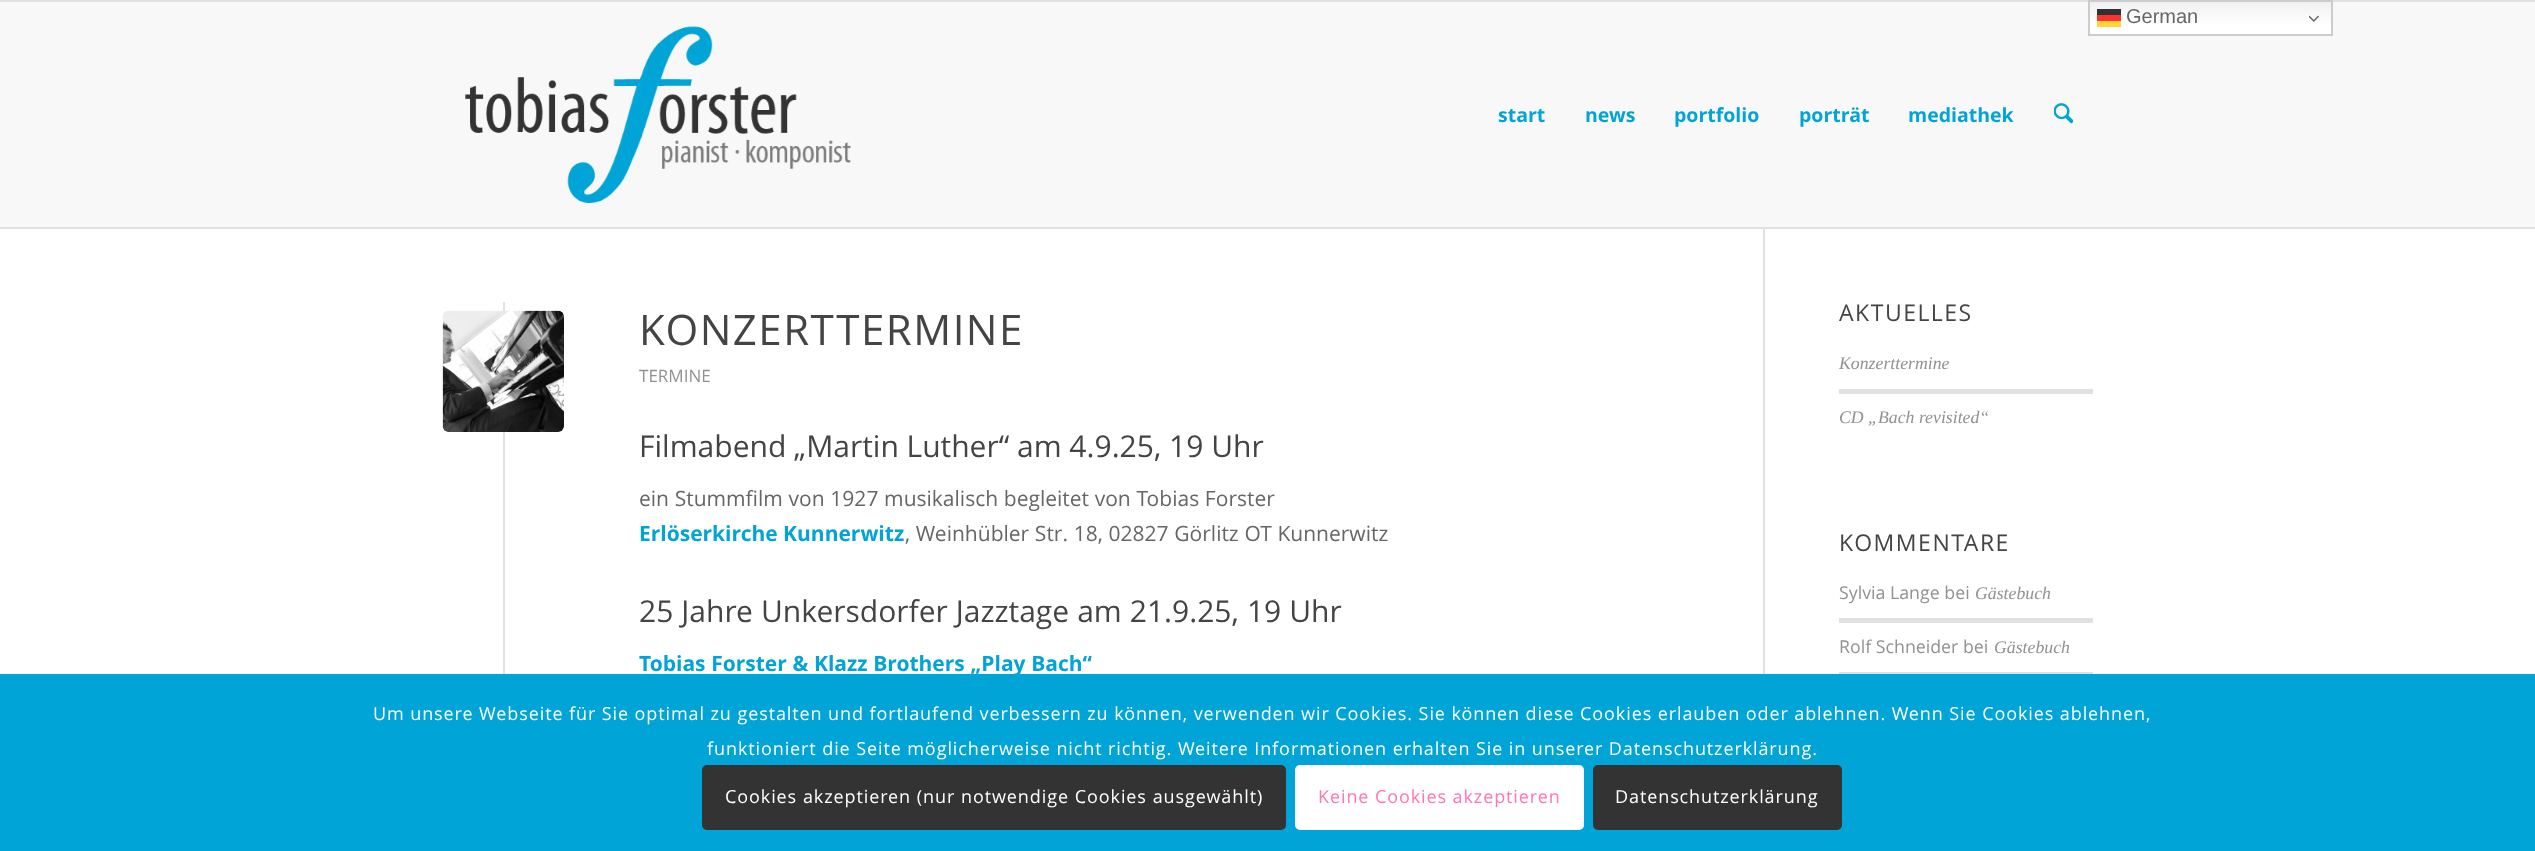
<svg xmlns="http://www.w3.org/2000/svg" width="2535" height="851">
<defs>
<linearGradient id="g1" gradientUnits="userSpaceOnUse" x1="2210" y1="0" x2="2210" y2="36"><stop offset="0" stop-color="#efefef"/><stop offset="0.7" stop-color="#fff"/></linearGradient>
<linearGradient id="g2" gradientUnits="userSpaceOnUse" x1="2210" y1="0" x2="2210" y2="36"><stop offset="0" stop-color="#fc3030"/><stop offset="0.7" stop-color="#f33"/></linearGradient>
<linearGradient id="g3" gradientUnits="userSpaceOnUse" x1="2210" y1="0" x2="2210" y2="36"><stop offset="0" stop-color="#303030"/><stop offset="0.7" stop-color="#333"/></linearGradient>
</defs>
<rect width="100%" height="100%" fill="#f8f8f8"/>
<rect x="2090" y="2" width="241" height="32" fill="url(#g1)"/>
<rect x="2097" y="15" width="24" height="6" fill="url(#g2)"/>
<rect x="2097" y="9" width="24" height="6" fill="url(#g3)"/>
<rect width="2535" height="2" fill="#e1e1e1"/>
<rect x="2089" y="1" width="243" height="34" fill="none" stroke="#ccc" stroke-width="2"/>
<text x="2126" y="23" style="font-family:Liberation Sans;font-size:20px;fill:#666">German</text>
<image x="2309" y="15" width="10" height="7" href="media/1.png"/>
<rect x="2097" y="21" width="24" height="6" fill="#ffd633"/>
<rect y="229" width="2535" height="445" fill="#fff"/>
<rect x="1763" y="227" width="2" height="447" fill="#e1e1e1"/>
<rect y="227" width="2535" height="2" fill="#e1e1e1"/>
<image x="465" y="26" width="386" height="177" href="media/2.png"/>
<text x="1498" y="122" style="font-family:Open Sans;font-size:19.5px;font-weight:bold;fill:#01a4d6">start</text>
<text x="1585" y="122" style="font-family:Open Sans;font-size:19.5px;font-weight:bold;fill:#01a4d6">news</text>
<text x="1674" y="122" style="font-family:Open Sans;font-size:19.5px;font-weight:bold;fill:#01a4d6">portfolio</text>
<text x="1799" y="122" style="font-family:Open Sans;font-size:19.5px;font-weight:bold;fill:#01a4d6">porträt</text>
<text x="1908" y="122" style="font-family:Open Sans;font-size:19.5px;font-weight:bold;fill:#01a4d6">mediathek</text>
<image x="2054" y="103" width="19" height="21" href="media/3.png"/>
<rect x="503" y="302" width="2" height="372" fill="#e1e1e1"/>
<rect x="443" y="311" width="121" height="121" rx="6" fill="#919191"/>
<image x="442" y="310" width="122" height="122" href="media/4.png"/>
<text x="639" y="345" style="font-family:Open Sans;font-size:42px;letter-spacing:1.5px;fill:#444">KONZERTTERMINE</text>
<text x="639" y="382" style="font-family:Open Sans;font-size:17px;fill:#919191">TERMINE</text>
<text x="639" y="457" style="font-family:Open Sans;font-size:30px;fill:#444">Filmabend „Martin Luther“ am 4.9.25, 19 Uhr</text>
<text x="639" y="506" word-spacing="0.25" style="font-family:Open Sans;font-size:21px;fill:#666">ein Stummfilm von 1927 musikalisch begleitet von Tobias Forster</text>
<text x="639" y="541" style="font-family:Open Sans;font-size:21px;font-weight:bold;fill:#01a4d6">Erlöserkirche Kunnerwitz</text>
<text x="905" y="541" word-spacing="0.25" style="font-family:Open Sans;font-size:21px;fill:#666">, Weinhübler Str. 18, 02827 Görlitz OT Kunnerwitz</text>
<text x="639" y="622" word-spacing="0.25" style="font-family:Open Sans;font-size:30px;fill:#444">25 Jahre Unkersdorfer Jazztage am 21.9.25, 19 Uhr</text>
<text x="639" y="671" word-spacing="0.25" style="font-family:Open Sans;font-size:21px;font-weight:bold;fill:#01a4d6">Tobias Forster &amp; Klazz Brothers „Play Bach“</text>
<text x="1839" y="321" style="font-family:Open Sans;font-size:23px;letter-spacing:1.5px;fill:#444">AKTUELLES</text>
<text x="1839" y="369" style="font-family:Liberation Serif;font-size:17.75px;font-style:italic;fill:#919191">Konzerttermine</text>
<rect x="1839" y="389" width="254" height="5" fill="#e1e1e1"/>
<text x="1839" y="423" style="font-family:Liberation Serif;font-size:17.75px;font-style:italic;fill:#919191">CD „Bach revisited“</text>
<text x="1839" y="551" style="font-family:Open Sans;font-size:23px;letter-spacing:1.5px;fill:#444">KOMMENTARE</text>
<text x="1839" y="599" style="font-family:Open Sans;font-size:17.75px;fill:#919191">Sylvia Lange bei</text>
<text x="1975" y="599" style="font-family:Liberation Serif;font-size:17.75px;font-style:italic;fill:#919191">Gästebuch</text>
<rect x="1839" y="618" width="254" height="5" fill="#e1e1e1"/>
<text x="1839" y="653" style="font-family:Open Sans;font-size:17.75px;fill:#919191">Rolf Schneider bei</text>
<text x="1994" y="653" style="font-family:Liberation Serif;font-size:17.75px;font-style:italic;fill:#919191">Gästebuch</text>
<rect x="1839" y="672" width="254" height="2" fill="#e1e1e1"/>
<rect y="674" width="2535" height="177" fill="#01a4d6"/>
<text x="373" y="720" style="font-family:Open Sans;font-size:18px;letter-spacing:0.9px;fill:#fff">Um unsere Webseite für Sie optimal zu gestalten und fortlaufend verbessern zu können, verwenden wir Cookies. Sie können diese Cookies erlauben oder ablehnen. Wenn Sie Cookies ablehnen,</text>
<text x="707" y="755" style="font-family:Open Sans;font-size:18px;letter-spacing:0.9px;fill:#fff">funktioniert die Seite möglicherweise nicht richtig. Weitere Informationen erhalten Sie in unserer Datenschutzerklärung.</text>
<rect x="702" y="765" width="584" height="65" rx="5" fill="#333"/>
<text x="725" y="803" word-spacing="0.25" style="font-family:Open Sans;font-size:18px;letter-spacing:0.9px;fill:#fff">Cookies akzeptieren (nur notwendige Cookies ausgewählt)</text>
<rect x="1296.5" y="766.5" width="286" height="62" rx="3.5" fill="#fff" stroke="#fff" stroke-width="3"/>
<text x="1318" y="803" style="font-family:Open Sans;font-size:18px;letter-spacing:0.9px;fill:#ff75b5">Keine Cookies akzeptieren</text>
<rect x="1593" y="765" width="249" height="65" rx="5" fill="#333"/>
<text x="1615" y="803" style="font-family:Open Sans;font-size:18px;letter-spacing:0.9px;fill:#fff">Datenschutzerklärung</text>
</svg>
